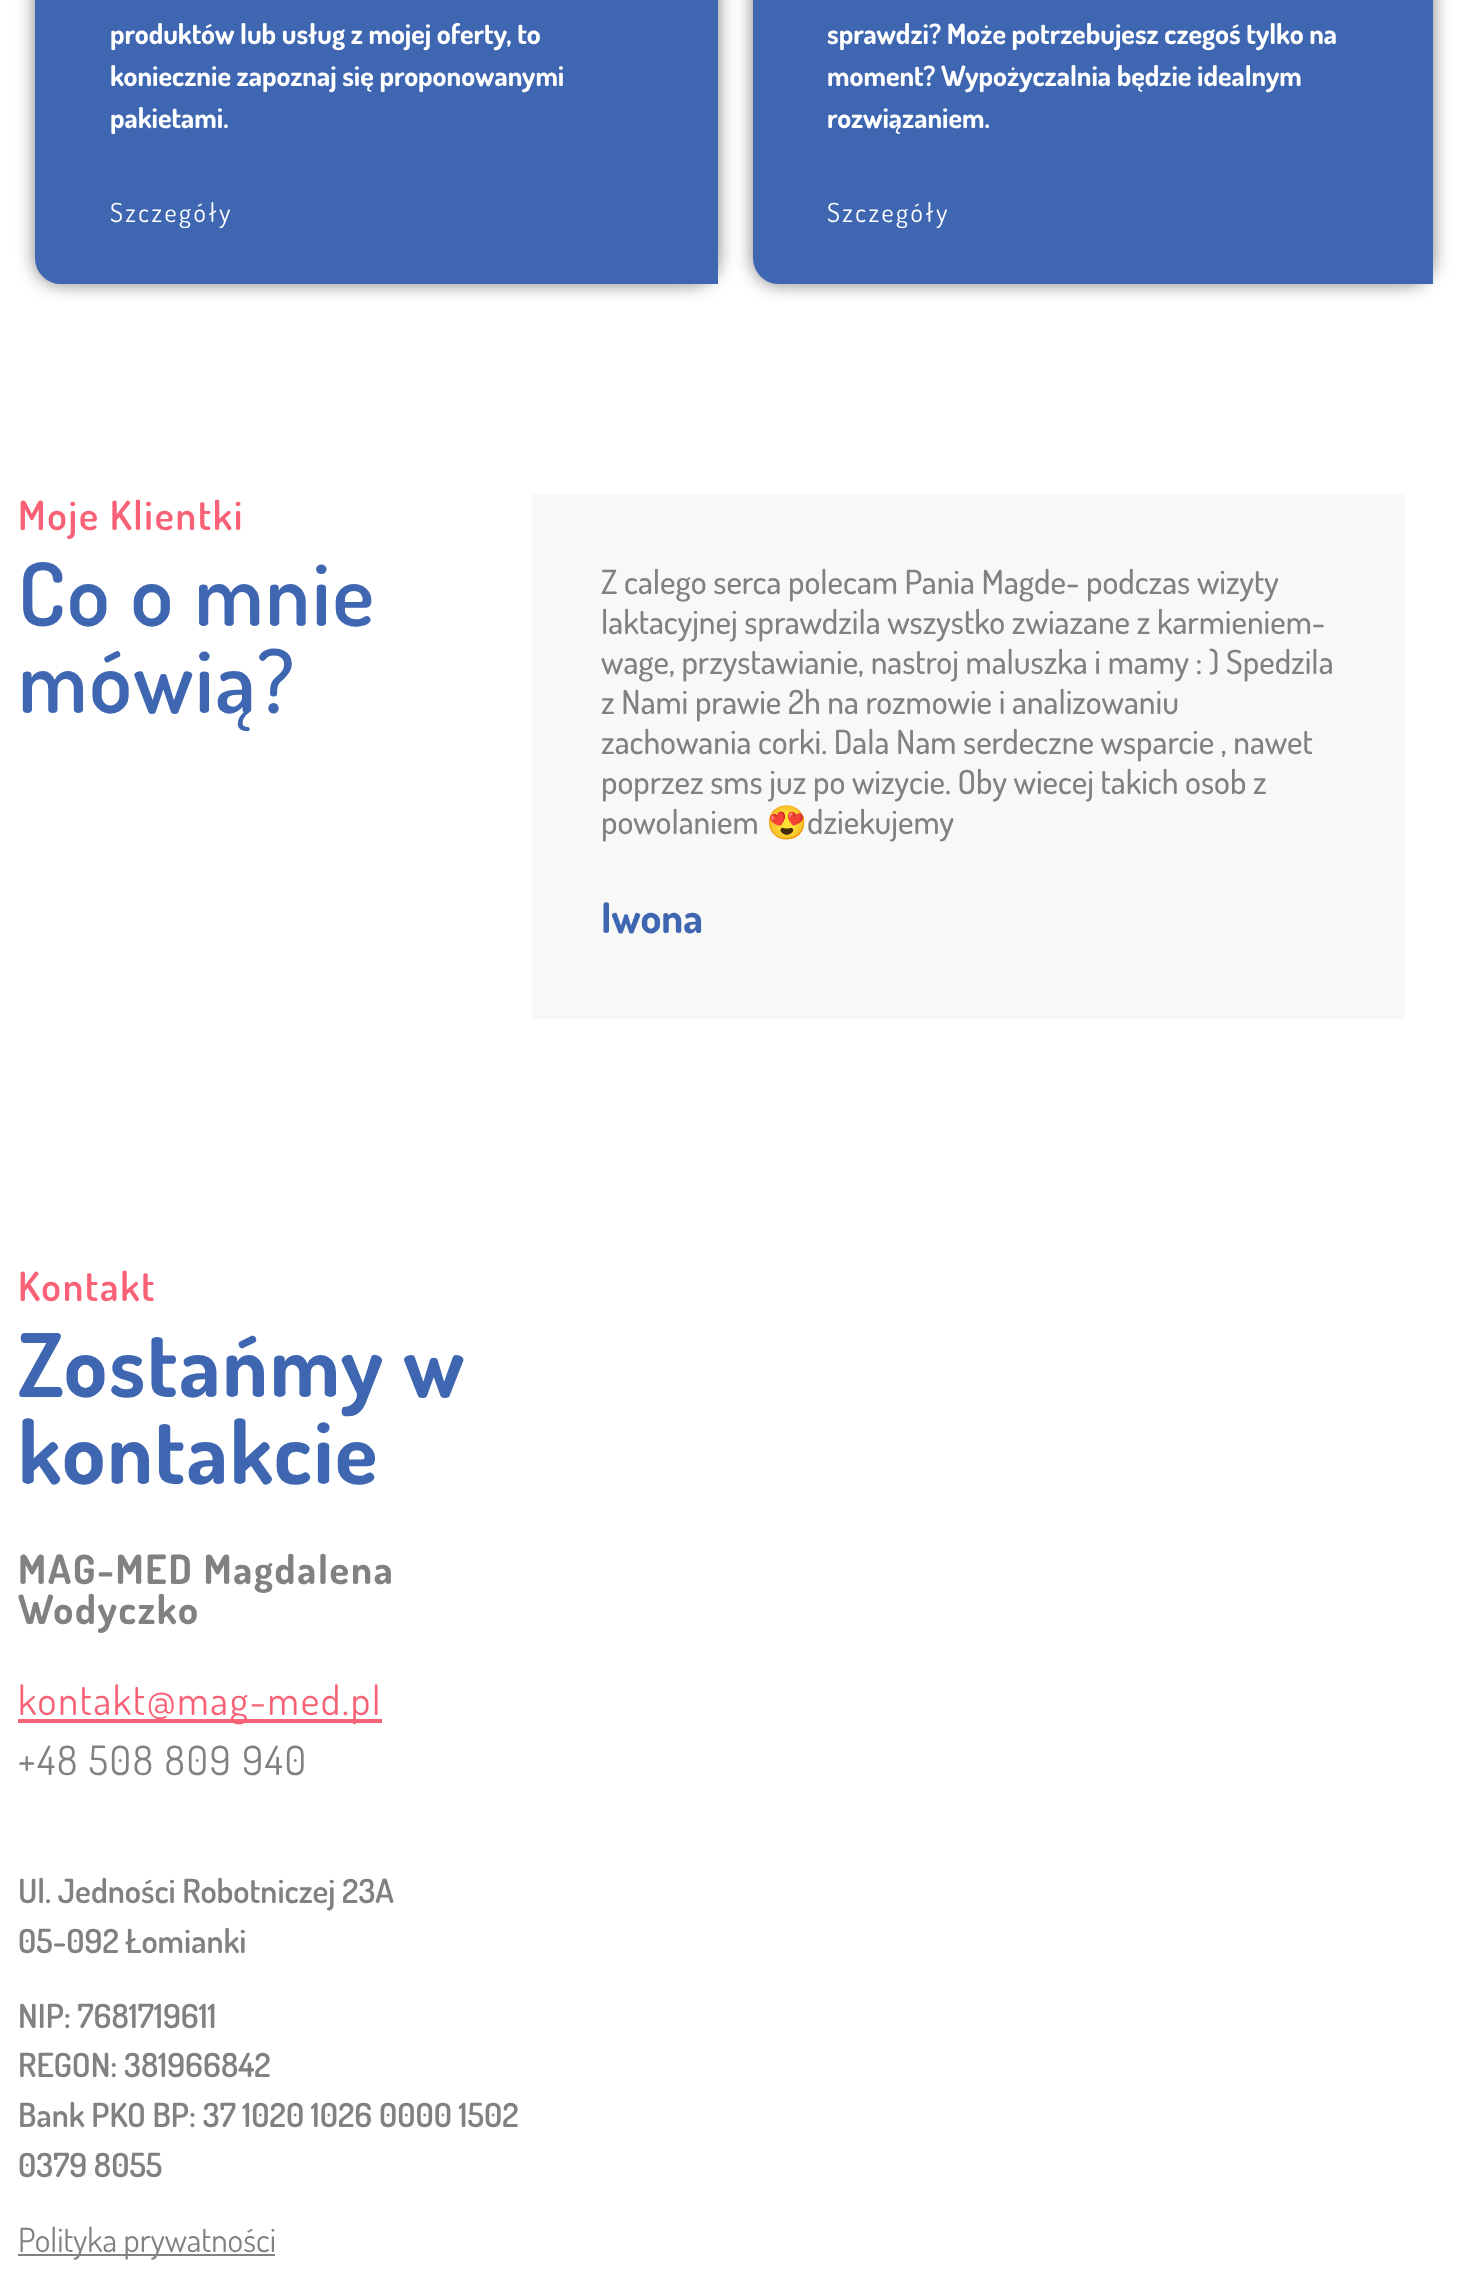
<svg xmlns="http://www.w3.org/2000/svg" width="1468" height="2270">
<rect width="100%" height="100%" fill="#fff"/>
<rect x="35" y="-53" width="683" height="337" rx="26" fill="#00000080" filter="blur(9px)"/>
<path d="M37.5-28.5h654.5c13 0 23.5 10.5 23.5 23.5v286.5h-654.5c-13 0-23.5-10.5-23.5-23.5z" fill="#3e66b1" stroke="#3e66b1" stroke-width="5"/>
<text x="110" y="44" style="font-family:Dosis;font-size:28px;font-weight:bold;fill:#fff">produktów lub usług z mojej oferty, to</text>
<text x="110" y="86" style="font-family:Dosis;font-size:28px;font-weight:bold;fill:#fff">koniecznie zapoznaj się proponowanymi</text>
<text x="110" y="128" style="font-family:Dosis;font-size:28px;font-weight:bold;fill:#fff">pakietami.</text>
<text x="110" y="222" style="font-family:Dosis;font-size:26.25px;letter-spacing:2.6px;fill:#fff">Szczegóły</text>
<rect x="753" y="-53" width="680" height="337" rx="26" fill="#00000080" filter="blur(9px)"/>
<path d="M755.5-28.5h651.5c13 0 23.5 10.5 23.5 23.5v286.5h-651.5c-13 0-23.5-10.5-23.5-23.5z" fill="#3e66b1" stroke="#3e66b1" stroke-width="5"/>
<text x="827" y="44" style="font-family:Dosis;font-size:28px;font-weight:bold;fill:#fff">sprawdzi? Może potrzebujesz czegoś tylko na</text>
<text x="827" y="86" style="font-family:Dosis;font-size:28px;font-weight:bold;fill:#fff">moment? Wypożyczalnia będzie idealnym</text>
<text x="827" y="128" style="font-family:Dosis;font-size:28px;font-weight:bold;fill:#fff">rozwiązaniem.</text>
<text x="827" y="222" style="font-family:Dosis;font-size:26.25px;letter-spacing:2.6px;fill:#fff">Szczegóły</text>
<text x="18" y="530" style="font-family:Dosis;font-size:40.25px;font-weight:600;letter-spacing:1.75px;fill:#f86176">Moje Klientki</text>
<text x="18" y="626" style="font-family:Dosis;font-size:87.5px;font-weight:600;letter-spacing:1.75px;fill:#3e66b1">Co o mnie</text>
<text x="18" y="713" style="font-family:Dosis;font-size:87.5px;font-weight:600;letter-spacing:1.75px;fill:#3e66b1">mówią?</text>
<rect x="532" y="494" width="873" height="525" fill="#f8f8f7"/>
<text x="601" y="594" style="font-family:Dosis;font-size:33.25px;font-weight:500;fill:#818181">Z calego serca polecam Pania Magde- podczas wizyty</text>
<text x="601" y="634" style="font-family:Dosis;font-size:33.25px;font-weight:500;fill:#818181">laktacyjnej sprawdzila wszystko zwiazane z karmieniem-</text>
<text x="601" y="674" style="font-family:Dosis;font-size:33.25px;font-weight:500;fill:#818181">wage, przystawianie, nastroj maluszka i mamy : ) Spedzila</text>
<text x="601" y="714" style="font-family:Dosis;font-size:33.25px;font-weight:500;fill:#818181">z Nami prawie 2h na rozmowie i analizowaniu</text>
<text x="601" y="754" style="font-family:Dosis;font-size:33.25px;font-weight:500;fill:#818181">zachowania corki. Dala Nam serdeczne wsparcie , nawet</text>
<text x="601" y="794" style="font-family:Dosis;font-size:33.25px;font-weight:500;fill:#818181">poprzez sms juz po wizycie. Oby wiecej takich osob z</text>
<text x="601" y="834" style="font-family:Dosis;font-size:33.25px;font-weight:500;fill:#818181">powolaniem</text>
<text x="766" y="834" style="font-family:Noto Color Emoji;font-size:33.25px;fill:#818181">😍</text>
<text x="807" y="834" style="font-family:Dosis;font-size:33.25px;font-weight:500;fill:#818181">dziekujemy</text>
<text x="601" y="933" style="font-family:Dosis;font-size:42px;font-weight:bold;fill:#3e66b1">Iwona</text>
<text x="18" y="1301" style="font-family:Dosis;font-size:40.25px;font-weight:600;letter-spacing:1.75px;fill:#f86176">Kontakt</text>
<text x="18" y="1397" style="font-family:Dosis;font-size:87.5px;font-weight:bold;letter-spacing:1.75px;fill:#3e66b1">Zostańmy w</text>
<text x="18" y="1484" style="font-family:Dosis;font-size:87.5px;font-weight:bold;letter-spacing:1.75px;fill:#3e66b1">kontakcie</text>
<text x="18" y="1584" style="font-family:Dosis;font-size:40.25px;font-weight:bold;letter-spacing:1.75px;fill:#818181">MAG-MED Magdalena</text>
<text x="18" y="1624" style="font-family:Dosis;font-size:40.25px;font-weight:bold;letter-spacing:1.75px;fill:#818181">Wodyczko</text>
<rect x="18" y="1719" width="364" height="4" fill="#f86176"/>
<text x="18" y="1715" style="font-family:Dosis;font-size:40.25px;letter-spacing:1.75px;fill:#f86176">kontakt@mag-med.pl</text>
<text x="18" y="1775" style="font-family:Dosis;font-size:40.25px;letter-spacing:1.75px;fill:#818181">+48 508 809 940</text>
<text x="18" y="1903" style="font-family:Dosis;font-size:33.25px;font-weight:600;fill:#818181">Ul. Jedności Robotniczej 23A</text>
<text x="18" y="1953" style="font-family:Dosis;font-size:33.25px;font-weight:600;fill:#818181">05-092 Łomianki</text>
<text x="18" y="2028" style="font-family:Dosis;font-size:33.25px;font-weight:600;fill:#818181">NIP: 7681719611</text>
<text x="18" y="2077" style="font-family:Dosis;font-size:33.25px;font-weight:600;fill:#818181">REGON: 381966842</text>
<text x="18" y="2127" style="font-family:Dosis;font-size:33.25px;font-weight:600;fill:#818181">Bank PKO BP: 37 1020 1026 0000 1502</text>
<text x="18" y="2177" style="font-family:Dosis;font-size:33.25px;font-weight:600;fill:#818181">0379 8055</text>
<rect x="18" y="2254" width="257" height="2" fill="#818181"/>
<text x="18" y="2252" style="font-family:Dosis;font-size:33.25px;fill:#818181">Polityka prywatności</text>
</svg>
